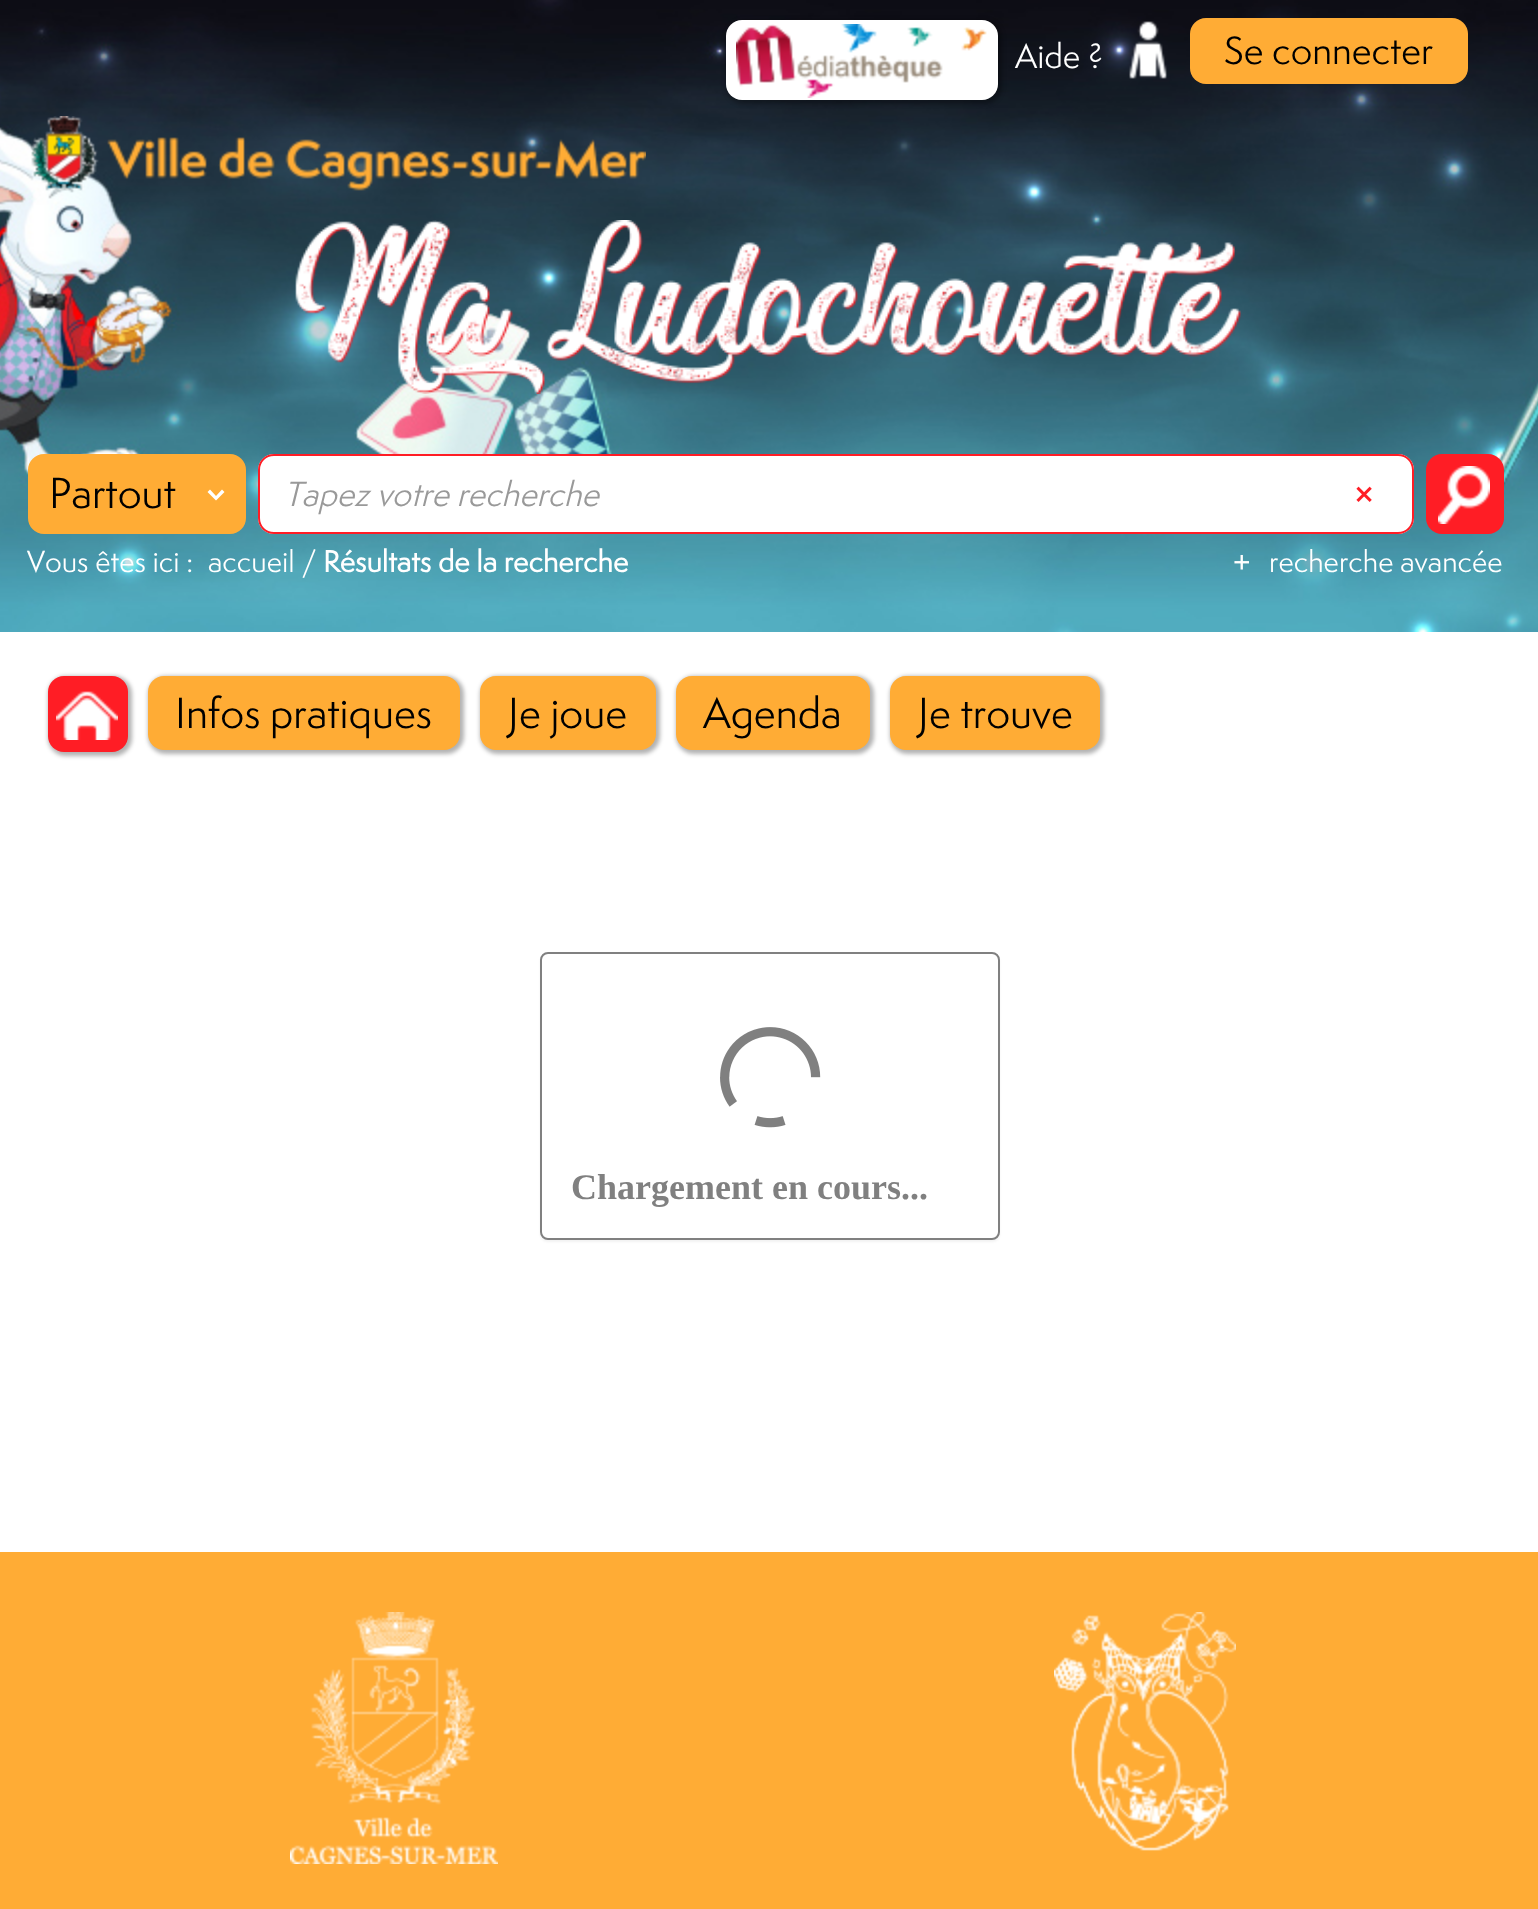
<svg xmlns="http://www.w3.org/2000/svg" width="1538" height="1909">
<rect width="100%" height="100%" fill="#fff"/>
<image x="0" y="0" width="1538" height="632" href="media/1.png"/>
<rect x="726" y="20" width="276" height="84" rx="18" fill="#0000004d" filter="blur(2px)"/>
<rect x="726" y="20" width="272" height="80" rx="16" fill="#fff"/>
<image x="736" y="24" width="251" height="74" href="media/2.png"/>
<text x="1015" y="68" style="font-family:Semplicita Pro;font-size:32px;fill:#fff">Aide ?</text>
<rect x="1190" y="18" width="278" height="66" rx="16" fill="#ffac35"/>
<image x="1129" y="21" width="38" height="58" href="media/3.png"/>
<text x="1224" y="64" style="font-family:Semplicita Pro;font-size:36px;fill:#000">Se connecter</text>
<image x="31" y="116" width="615" height="75" href="media/4.png"/>
<image x="295" y="220" width="946" height="174" href="media/5.png"/>
<rect x="29" y="455" width="216" height="78" rx="15" fill="#ffac35" stroke="#ffac35" stroke-width="2"/>
<text x="49" y="508" style="font-family:Semplicita Pro;font-size:40px;fill:#000">Partout</text>
<path d="M216 500.5l-8.5-8.5l2.5-2.5l6 6.5l6-6.5l2.5 2.5z" fill="#fff"/>
<path d="M274 454h1050v80h-1050c-9 0-16-7-16-16v-48c0-9 7-16 16-16z" fill="#fff"/>
<path d="M274 454h1050v80h-1050c-9 0-16-7-16-16v-48c0-9 7-16 16-16zm0 2h1050v76h-1050c-8 0-14-6-14-14v-48c0-8 6-14 14-14z" fill="#ff1d25" fill-rule="evenodd"/>
<text x="284" y="506" style="font-family:Semplicita Pro;font-size:32px;font-style:italic;fill:#999">Tapez votre recherche</text>
<path d="M1322 454h76c9 0 16 7 16 16v48c0 9-7 16-16 16h-76z" fill="#fff"/>
<path d="M1322 454h76c9 0 16 7 16 16v48c0 9-7 16-16 16h-76zm0 2h76c8 0 14 6 14 14v48c0 8-6 14-14 14h-76z" fill="#ff1d25" fill-rule="evenodd"/>
<image x="1356" y="486" width="16" height="16" href="media/6.png"/>
<rect x="1426" y="454" width="78" height="80" rx="16" fill="#ff1d25"/>
<image x="1438" y="466" width="52" height="58" href="media/7.png"/>
<image x="1234" y="554" width="15" height="16" href="media/8.png"/>
<text x="1269" y="572" style="font-family:Semplicita Pro;font-size:28px;fill:#fff">recherche avancée</text>
<text x="27" y="572" style="font-family:Semplicita Pro;font-size:28px;fill:#fff">Vous êtes ici :</text>
<text x="208" y="572" style="font-family:Semplicita Pro;font-size:28px;fill:#fff">accueil /</text>
<text x="323" y="572" style="font-family:Semplicita Pro;font-size:28px;font-weight:bold;fill:#fff">Résultats de la recherche</text>
<rect x="48" y="676" width="84" height="80" rx="18" fill="#0000004d" filter="blur(2px)"/>
<rect x="48" y="676" width="80" height="76" rx="16" fill="#ff1d25"/>
<image x="56" y="691" width="62" height="49" href="media/9.png"/>
<rect x="148" y="676" width="316" height="78" rx="18" fill="#0000004d" filter="blur(2px)"/>
<rect x="148" y="676" width="312" height="74" rx="16" fill="#ffac35"/>
<text x="175" y="728" style="font-family:Semplicita Pro;font-size:40px;fill:#000">Infos pratiques</text>
<rect x="480" y="676" width="180" height="78" rx="18" fill="#0000004d" filter="blur(2px)"/>
<rect x="480" y="676" width="176" height="74" rx="16" fill="#ffac35"/>
<text x="508" y="728" style="font-family:Semplicita Pro;font-size:40px;fill:#000">Je joue</text>
<rect x="676" y="676" width="198" height="78" rx="18" fill="#0000004d" filter="blur(2px)"/>
<rect x="676" y="676" width="194" height="74" rx="16" fill="#ffac35"/>
<text x="703" y="728" style="font-family:Semplicita Pro;font-size:40px;fill:#000">Agenda</text>
<rect x="890" y="676" width="214" height="78" rx="18" fill="#0000004d" filter="blur(2px)"/>
<rect x="890" y="676" width="210" height="74" rx="16" fill="#ffac35"/>
<text x="918" y="728" style="font-family:Semplicita Pro;font-size:40px;fill:#000">Je trouve</text>
<rect x="540" y="954" width="460" height="288" rx="8" fill="#0000000d" filter="blur(1px)"/>
<rect x="541" y="953" width="458" height="286" rx="7" fill="#fff" stroke="#808080" stroke-width="2"/>
<image x="720" y="1027" width="101" height="101" href="media/10.png"/>
<text x="571" y="1199" style="font-family:Liberation Serif;font-size:36px;font-weight:bold;fill:#808080">Chargement en cours...</text>
<rect y="1552" width="1538" height="357" fill="#ffac35"/>
<image x="290" y="1612" width="208" height="252" href="media/11.png"/>
<image x="1054" y="1612" width="182" height="239" href="media/12.png"/>
</svg>
